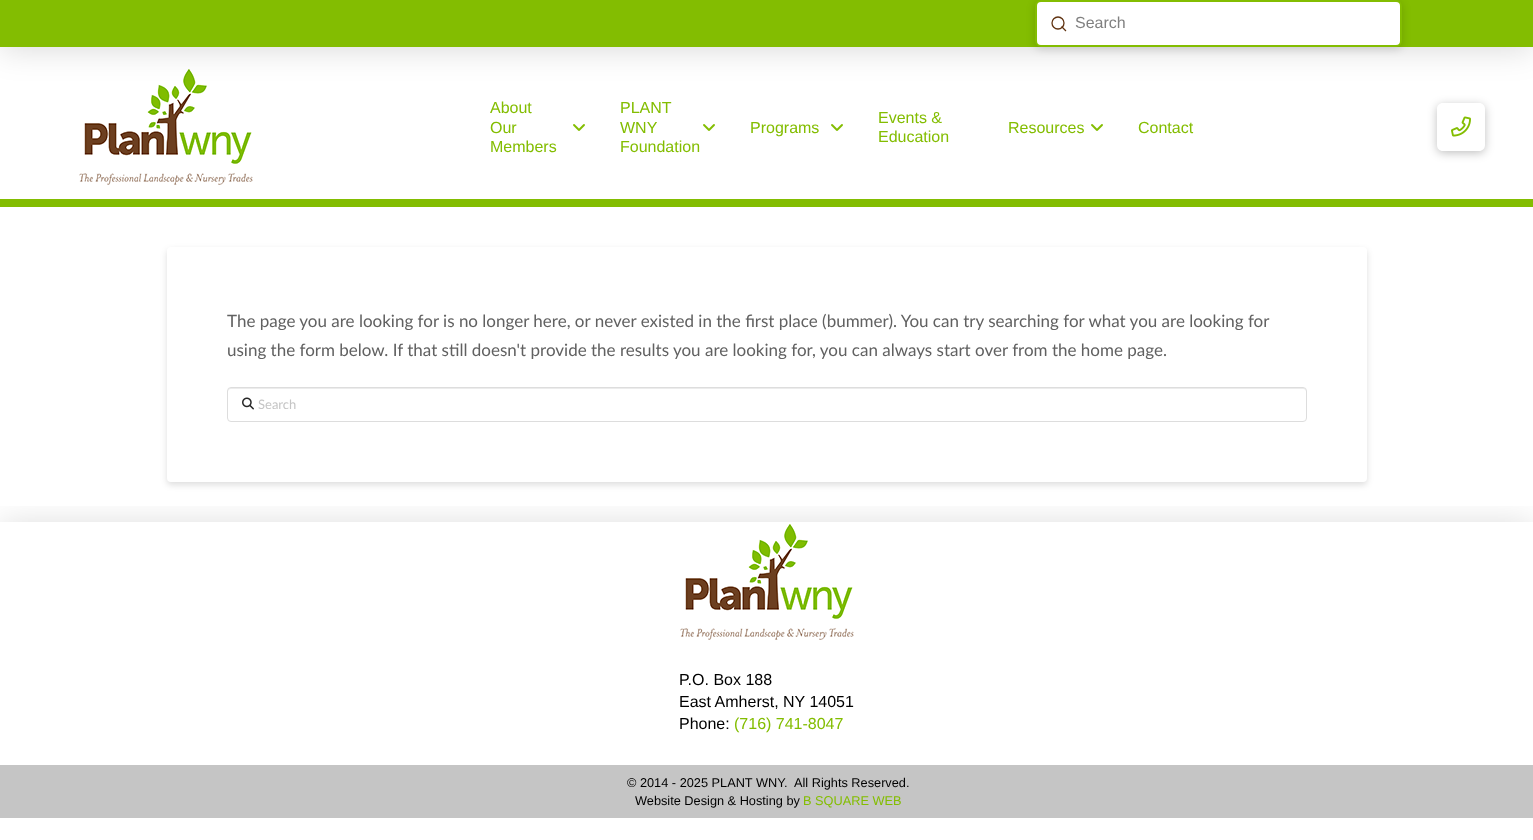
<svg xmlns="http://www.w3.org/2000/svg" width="1533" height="840">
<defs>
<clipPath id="clip1"><path d="M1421 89h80v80h-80zm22 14h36c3.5 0 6 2.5 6 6v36c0 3.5-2.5 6-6 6h-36c-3.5 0-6-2.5-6-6v-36c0-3.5 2.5-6 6-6z" clip-rule="evenodd"/></clipPath>
<clipPath id="clip2"><rect x="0" y="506" width="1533" height="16"/></clipPath>
</defs>
<rect width="100%" height="100%" fill="#fff"/>
<image x="79" y="69" width="174" height="116" href="media/1.png"/>
<rect y="2" width="1533" height="47" fill="#00000026" filter="blur(16px)"/>
<rect width="1533" height="47" fill="#83bd01"/>
<rect x="1035" y="2" width="367" height="47" rx="6" fill="#00000026" filter="blur(4px)"/>
<rect x="1036" y="1" width="365" height="45" rx="5" fill="#fff" stroke="#83bd01" stroke-width="2"/>
<circle cx="1058" cy="23" r="6" fill="none" stroke="#603311" stroke-width="1.3"/>
<path d="M1065.5 30.5l-3.5-3.5" fill="none" stroke="#603311" stroke-width="1.3" stroke-linecap="square"/>
<text x="1075" y="28" style="font-family:Liberation Sans;font-size:16px;fill:#808080">Search</text>
<rect y="199" width="1533" height="8" fill="#83bd01"/>
<text x="490" y="113" style="font-family:Liberation Sans;font-size:16px;fill:#83bd01">About</text>
<text x="490" y="133" style="font-family:Liberation Sans;font-size:16px;fill:#83bd01">Our</text>
<text x="490" y="152" style="font-family:Liberation Sans;font-size:16px;fill:#83bd01">Members</text>
<image x="573" y="124" width="12" height="7" href="media/2.png"/>
<text x="620" y="113" style="font-family:Liberation Sans;font-size:16px;fill:#83bd01">PLANT</text>
<text x="620" y="133" style="font-family:Liberation Sans;font-size:16px;fill:#83bd01">WNY</text>
<text x="620" y="152" style="font-family:Liberation Sans;font-size:16px;fill:#83bd01">Foundation</text>
<image x="703" y="124" width="12" height="7" href="media/2.png"/>
<text x="750" y="133" style="font-family:Liberation Sans;font-size:16px;fill:#83bd01">Programs</text>
<image x="831" y="124" width="12" height="7" href="media/2.png"/>
<text x="878" y="123" style="font-family:Liberation Sans;font-size:16px;fill:#83bd01">Events &amp;</text>
<text x="878" y="142" style="font-family:Liberation Sans;font-size:16px;fill:#83bd01">Education</text>
<text x="1008" y="133" style="font-family:Liberation Sans;font-size:16px;fill:#83bd01">Resources</text>
<image x="1091" y="124" width="12" height="7" href="media/2.png"/>
<text x="1138" y="133" style="font-family:Liberation Sans;font-size:16px;fill:#83bd01">Contact</text>
<g clip-path="url(#clip1)">
<rect x="1437" y="105" width="48" height="48" rx="6" fill="#00000040" filter="blur(5px)"/>
</g>
<image x="1451" y="116" width="20" height="21" href="media/3.png"/>
<rect x="167" y="250" width="1200" height="235" rx="4" fill="#00000021" filter="blur(3px)"/>
<rect x="167" y="247" width="1200" height="235" rx="4" fill="#fff"/>
<text x="227" y="327" style="font-family:Lato;font-size:17px;fill:#616161">The page you are looking for is no longer here, or never existed in the first place (bummer). You can try searching for what you are looking for</text>
<text x="227" y="356" style="font-family:Lato;font-size:17px;fill:#616161">using the form below. If that still doesn't provide the results you are looking for, you can always start over from the home page.</text>
<path d="M231 389h1072c2 0 3 1 3 3v-1c0-2-1-3-3-3h-1072c-2 0-3 1-3 3v1c0-2 1-3 3-3z" fill="#ececec"/>
<rect x="227.5" y="387.5" width="1079" height="34" rx="3.5" fill="none" stroke="#ddd"/>
<image x="242" y="397" width="12" height="13" href="media/4.png"/>
<text x="258" y="409" style="font-family:Lato;font-size:13px;fill:#c5c5c5">Search</text>
<g clip-path="url(#clip2)">
<rect y="525" width="1533" height="243" fill="#00000026" filter="blur(17px)"/>
</g>
<image x="680" y="524" width="174" height="116" href="media/1.png"/>
<text x="679" y="685" style="font-family:Liberation Sans;font-size:16px;fill:#000">P.O. Box 188</text>
<text x="679" y="707" style="font-family:Liberation Sans;font-size:16px;fill:#000">East Amherst, NY 14051</text>
<text x="679" y="729" style="font-family:Liberation Sans;font-size:16px;fill:#000">Phone:</text>
<text x="734" y="729" style="font-family:Liberation Sans;font-size:16px;fill:#83bd01">(716) 741-8047</text>
<rect y="765" width="1533" height="53" fill="#c5c5c5"/>
<text x="627" y="787" style="font-family:Liberation Sans;font-size:12.75px;fill:#000" xml:space="preserve">© 2014 - 2025 PLANT WNY.  All Rights Reserved.</text>
<text x="635" y="805" style="font-family:Liberation Sans;font-size:12.75px;fill:#000">Website Design &amp; Hosting by</text>
<text x="803" y="805" style="font-family:Liberation Sans;font-size:12.75px;fill:#83bd01">B SQUARE WEB</text>
</svg>
